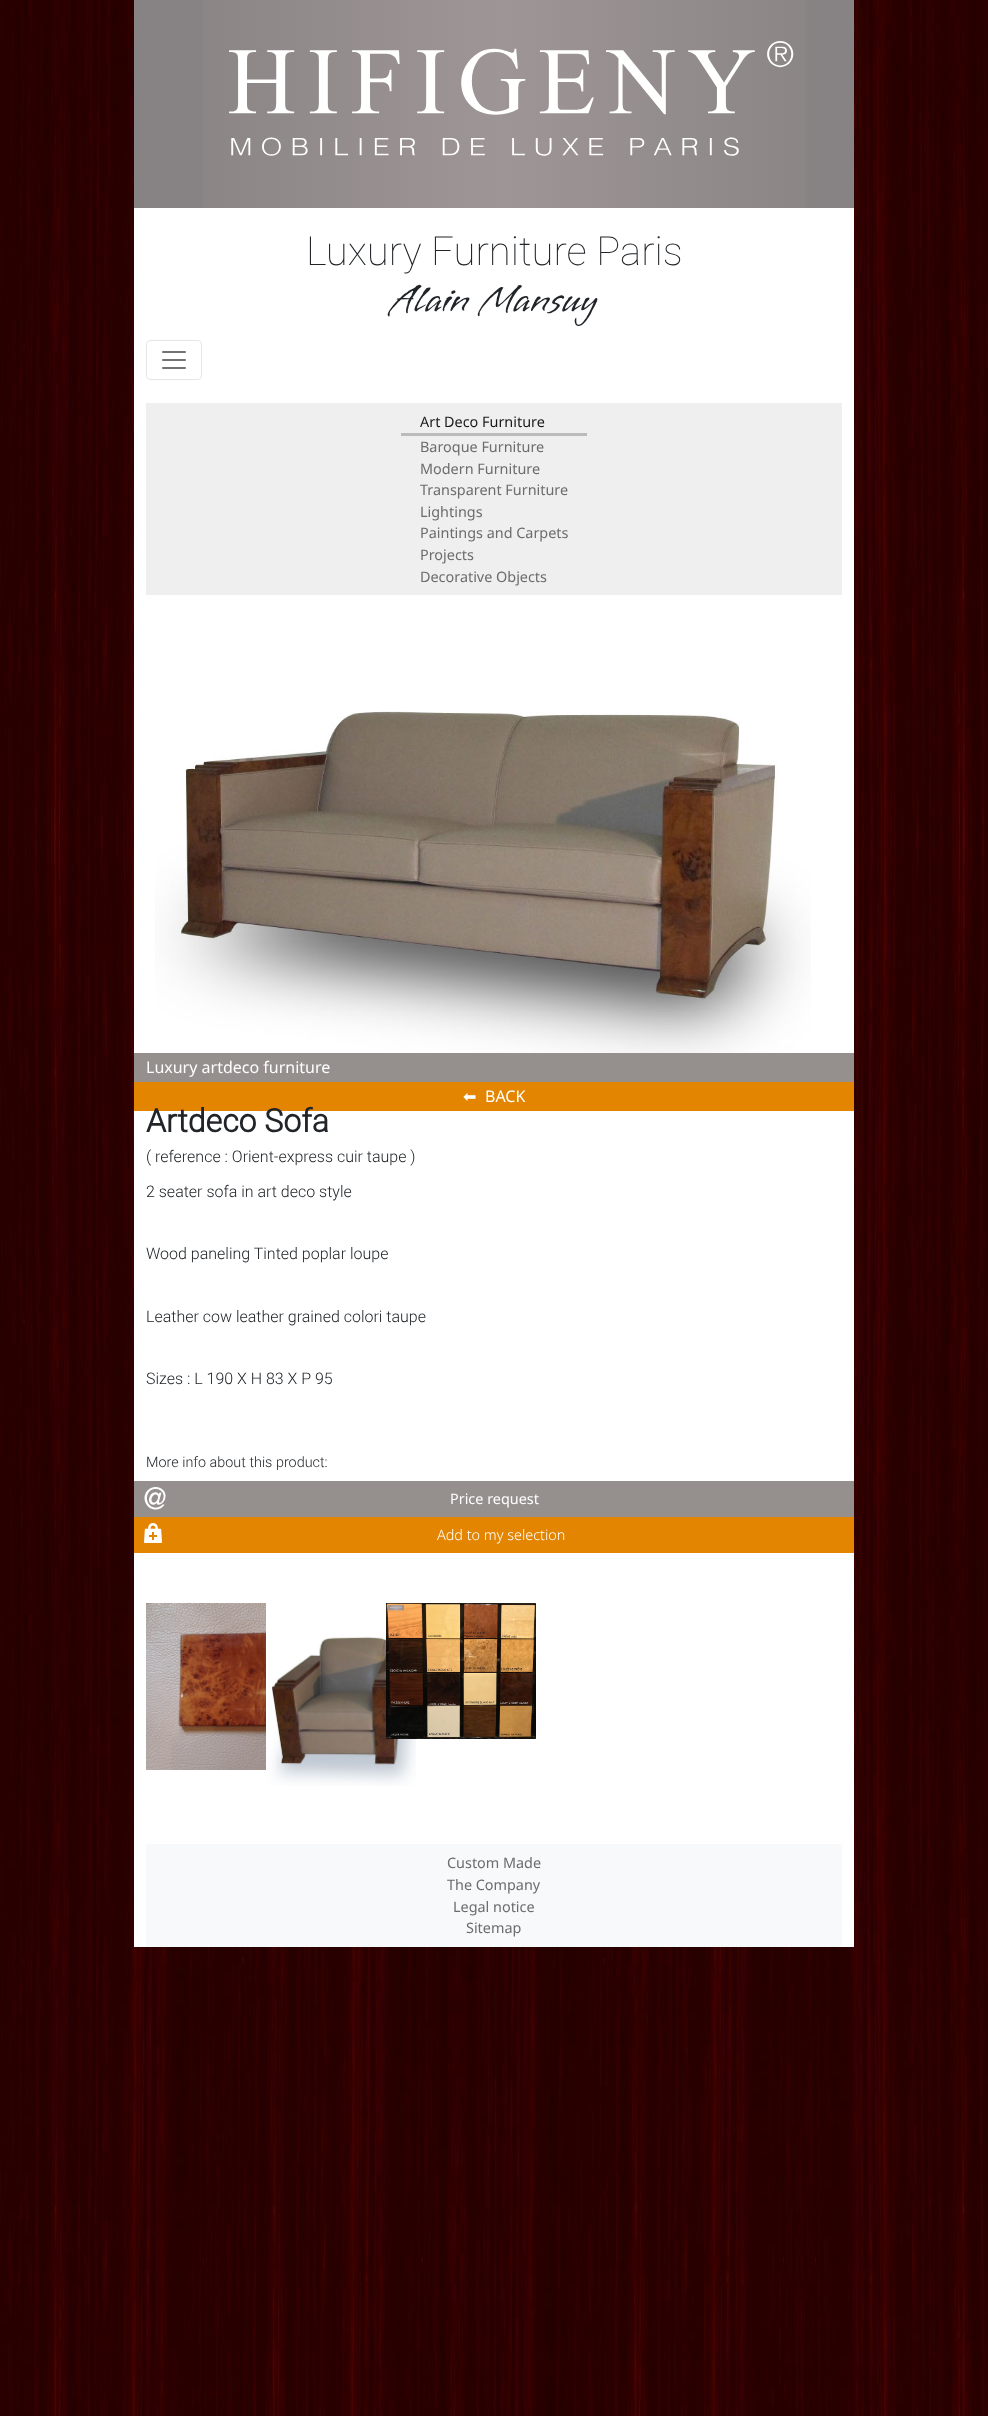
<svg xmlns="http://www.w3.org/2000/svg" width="988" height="2416">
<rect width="100%" height="100%" fill="#fff"/>
<image x="0" y="1947" width="988" height="469" href="media/1.png"/>
<image x="0" y="0" width="988" height="1947" href="media/2.png"/>
<rect x="134" y="208" width="720" height="1739" fill="#fff"/>
<rect x="134" width="720" height="208" fill="#878283"/>
<image x="203" y="0" width="603" height="208" href="media/3.png"/>
<text x="306" y="265" style="font-family:Roboto;font-size:40px;font-weight:100;fill:#212529">Luxury Furniture Paris</text>
<text x="391" y="311" style="font-family:Vujahday Script;font-size:40px;fill:#212529">Alain Mansuy</text>
<rect x="146.5" y="340.5" width="55" height="39" rx="3.5" fill="none" stroke="#e6e6e6"/>
<image x="162" y="351" width="24" height="18" href="media/4.png"/>
<rect x="146" y="403" width="696" height="192" fill="#efefef"/>
<rect x="401" y="433" width="186" height="3" fill="#bbb"/>
<text x="420" y="427" style="font-family:Noto Sans;font-size:14.4px;fill:#181818">Art Deco Furniture</text>
<text x="420" y="452" style="font-family:Noto Sans;font-size:14.4px;fill:#6c6c6c">Baroque Furniture</text>
<text x="420" y="474" style="font-family:Noto Sans;font-size:14.4px;fill:#6c6c6c">Modern Furniture</text>
<text x="420" y="495" style="font-family:Noto Sans;font-size:14.4px;fill:#6c6c6c">Transparent Furniture</text>
<text x="420" y="517" style="font-family:Noto Sans;font-size:14.4px;fill:#6c6c6c">Lightings</text>
<text x="420" y="538" style="font-family:Noto Sans;font-size:14.4px;fill:#6c6c6c">Paintings and Carpets</text>
<text x="420" y="560" style="font-family:Noto Sans;font-size:14.4px;fill:#6c6c6c">Projects</text>
<text x="420" y="582" style="font-family:Noto Sans;font-size:14.4px;fill:#6c6c6c">Decorative Objects</text>
<image x="155" y="711" width="656" height="342" href="media/5.png"/>
<rect x="134" y="1053" width="720" height="29" fill="#95908e"/>
<text x="146" y="1073" style="font-family:Noto Sans;font-size:16px;fill:#fff">Luxury artdeco furniture</text>
<rect x="134" y="1082" width="720" height="29" fill="#e38501"/>
<text x="463" y="1102" style="font-family:DejaVu Sans;font-size:16px;fill:#fff">⬅︎</text>
<text x="485" y="1102" style="font-family:Noto Sans;font-size:16px;fill:#fff">BACK</text>
<text x="146" y="1132" style="font-family:Roboto;font-size:32px;font-weight:bold;fill:#212529">Artdeco Sofa</text>
<text x="146" y="1162" style="font-family:Roboto;font-size:16px;font-weight:300;fill:#212529">( reference : Orient-express cuir taupe )</text>
<text x="146" y="1197" style="font-family:Roboto;font-size:16px;font-weight:300;fill:#212529">2 seater sofa in art deco style</text>
<text x="146" y="1259" style="font-family:Roboto;font-size:16px;font-weight:300;fill:#212529">Wood paneling Tinted poplar loupe</text>
<text x="146" y="1322" style="font-family:Roboto;font-size:16px;font-weight:300;fill:#212529">Leather cow leather grained colori taupe</text>
<text x="146" y="1384" style="font-family:Roboto;font-size:16px;font-weight:300;fill:#212529">Sizes : L 190 X H 83 X P 95</text>
<text x="146" y="1467" style="font-family:Roboto;font-size:14.4px;font-weight:300;fill:#212529">More info about this product:</text>
<rect x="134" y="1481" width="720" height="36" fill="#95908e"/>
<image x="144" y="1487" width="22" height="23" href="media/6.png"/>
<text x="450" y="1504" style="font-family:Noto Sans;font-size:14.4px;fill:#fff">Price request</text>
<rect x="134" y="1517" width="720" height="36" fill="#e38501"/>
<image x="144" y="1523" width="18" height="20" href="media/7.png"/>
<text x="437" y="1540" style="font-family:Noto Sans;font-size:14.4px;font-weight:300;fill:#fff">Add to my selection</text>
<image x="146" y="1603" width="120" height="167" href="media/8.png"/>
<image x="266" y="1603" width="150" height="183" href="media/9.png"/>
<image x="386" y="1603" width="150" height="136" href="media/10.png"/>
<rect x="146" y="1844" width="696" height="103" fill="#f8f9fa"/>
<text x="447" y="1868" style="font-family:Noto Sans;font-size:14.4px;fill:#6c6c6c">Custom Made</text>
<text x="447" y="1890" style="font-family:Noto Sans;font-size:14.4px;fill:#6c6c6c">The Company</text>
<text x="453" y="1912" style="font-family:Noto Sans;font-size:14.4px;fill:#6c6c6c">Legal notice</text>
<text x="466" y="1933" style="font-family:Noto Sans;font-size:14.4px;fill:#6c6c6c">Sitemap</text>
</svg>
